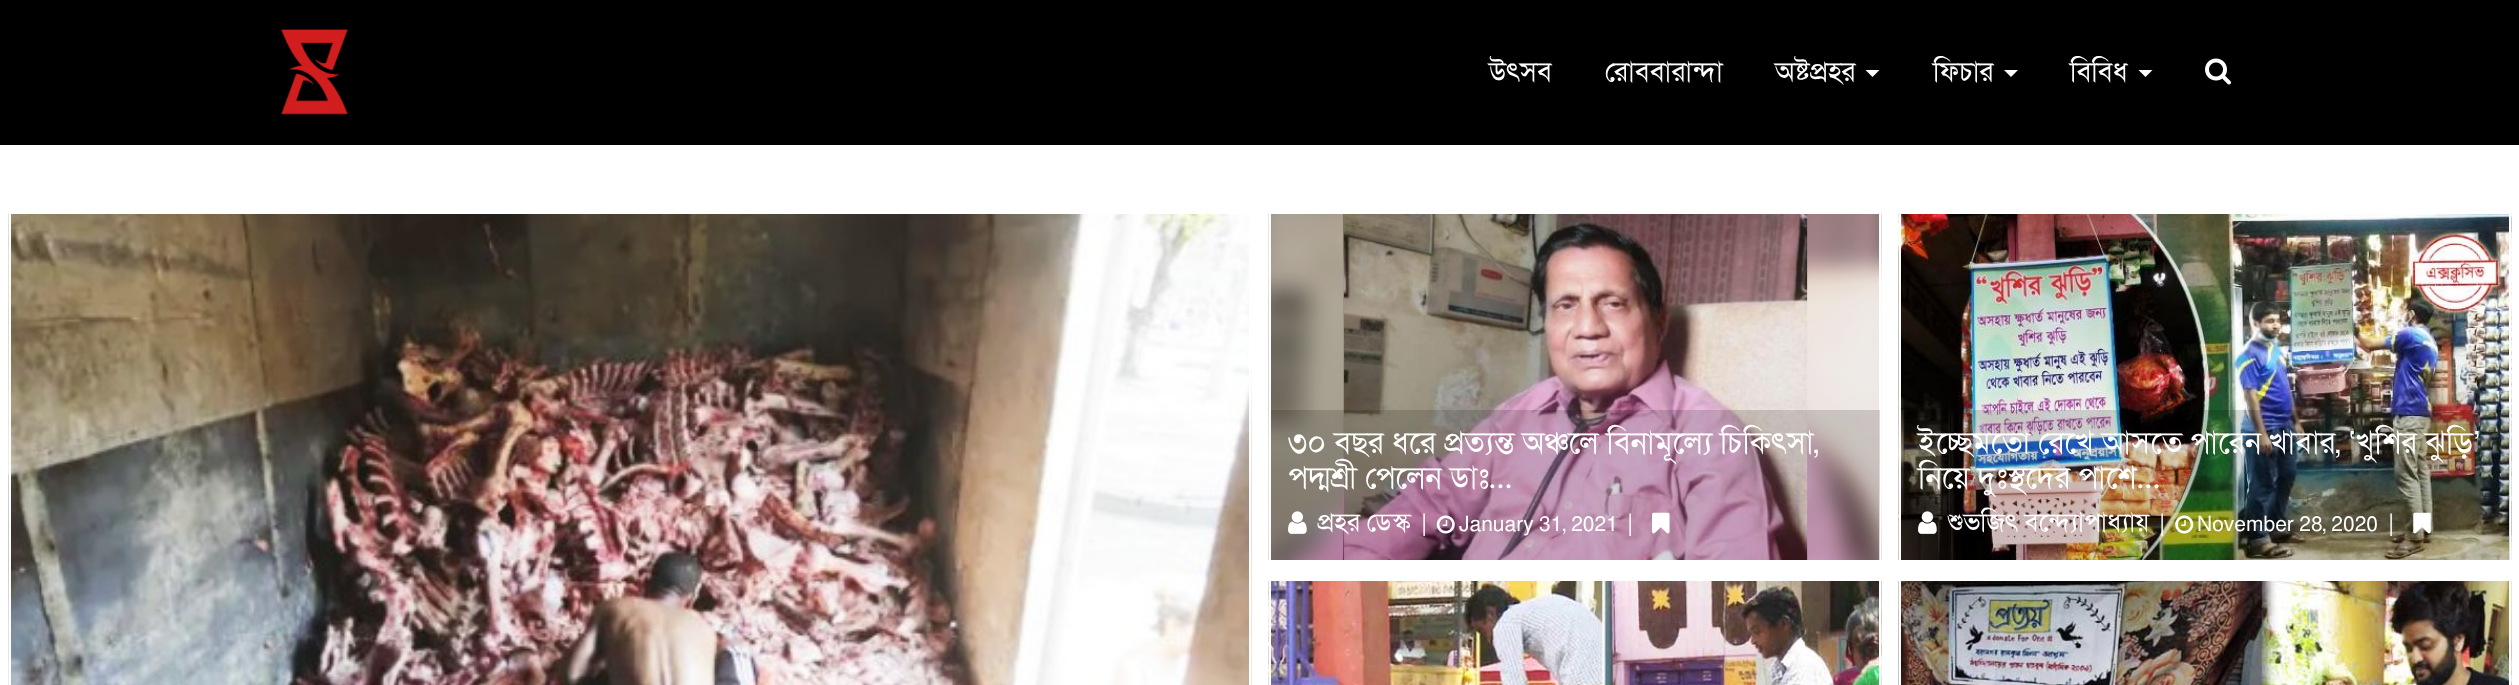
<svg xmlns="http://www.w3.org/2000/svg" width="2519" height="685">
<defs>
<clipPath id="clip1"><rect x="1901" y="410" width="609" height="87"/></clipPath>
</defs>
<rect width="100%" height="100%" fill="#fff"/>
<rect width="2519" height="145" fill="#000"/>
<image x="281" y="29" width="68" height="86" href="media/1.png"/>
<text x="1489" y="81" style="font-family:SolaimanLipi;font-size:28px;fill:#fff">উৎসব</text>
<text x="1605" y="81" style="font-family:SolaimanLipi;font-size:28px;fill:#fff">রোববারান্দা</text>
<text x="1775" y="81" style="font-family:SolaimanLipi;font-size:28px;fill:#fff">অষ্টপ্রহর</text>
<path d="M1865.5 70h14l-7 7z" fill="#fff"/>
<text x="1933" y="81" style="font-family:SolaimanLipi;font-size:28px;fill:#fff">ফিচার</text>
<path d="M2004 70h14l-7 7z" fill="#fff"/>
<text x="2070" y="81" style="font-family:SolaimanLipi;font-size:28px;fill:#fff">বিবিধ</text>
<path d="M2138.5 70h14l-7 7z" fill="#fff"/>
<image x="2205" y="58" width="26" height="27" href="media/2.png"/>
<image x="8" y="213" width="1244" height="472" href="media/3.png"/>
<rect x="10" y="213" width="1240" height="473" fill="none" stroke="#fff" stroke-width="2"/>
<image x="1268" y="213" width="614" height="347" href="media/4.png"/>
<rect x="1270" y="213" width="610" height="348" fill="none" stroke="#fff" stroke-width="2"/>
<rect x="1271" y="410" width="609" height="150" fill="#02020226"/>
<text x="1288" y="453" style="font-family:SolaimanLipi;font-size:31.5px;fill:#fff">৩০ বছর ধরে প্রত্যন্ত অঞ্চলে বিনামূল্যে চিকিৎসা,</text>
<text x="1288" y="488" style="font-family:SolaimanLipi;font-size:31.5px;fill:#fff">পদ্মশ্রী পেলেন ডাঃ</text>
<text x="1489" y="488" style="font-family:Lato;font-size:31.5px;fill:#fff">…</text>
<image x="1288" y="511" width="19" height="23" href="media/5.png"/>
<text x="1317" y="531" style="font-family:SolaimanLipi;font-size:26.25px;fill:#fff">প্রহর ডেস্ক</text>
<text x="1421" y="531" style="font-family:SolaimanLipi;font-size:24px;fill:#fff">|</text>
<image x="1436" y="515" width="19" height="19" href="media/6.png"/>
<text x="1459" y="531" style="font-family:SolaimanLipi;font-size:21px;fill:#fff">January 31, 2021</text>
<text x="1627" y="531" style="font-family:SolaimanLipi;font-size:24px;fill:#fff">|</text>
<image x="1652" y="512" width="18" height="22" href="media/7.png"/>
<image x="1898" y="213" width="614" height="347" href="media/8.png"/>
<rect x="1900" y="213" width="610" height="348" fill="none" stroke="#fff" stroke-width="2"/>
<rect x="1901" y="410" width="609" height="150" fill="#02020226"/>
<text x="1918" y="453" style="font-family:SolaimanLipi;font-size:31.5px;fill:#fff">ইচ্ছেমতো রেখে আসতে পারেন খাবার, ‘খুশির ঝুড়ি’</text>
<g clip-path="url(#clip1)">
<text x="1918" y="488" style="font-family:SolaimanLipi;font-size:31.5px;fill:#fff">নিয়ে দুঃস্থদের পাশে</text>
</g>
<text x="2137" y="488" style="font-family:Lato;font-size:31.5px;fill:#fff">…</text>
<image x="1918" y="511" width="19" height="23" href="media/9.png"/>
<text x="1947" y="531" style="font-family:SolaimanLipi;font-size:26.25px;fill:#fff">শুভজিৎ বন্দ্যোপাধ্যায়</text>
<text x="2159" y="531" style="font-family:SolaimanLipi;font-size:24px;fill:#fff">|</text>
<image x="2175" y="515" width="19" height="19" href="media/10.png"/>
<text x="2197" y="531" style="font-family:SolaimanLipi;font-size:21px;fill:#fff">November 28, 2020</text>
<text x="2388" y="531" style="font-family:SolaimanLipi;font-size:24px;fill:#fff">|</text>
<image x="2413" y="512" width="18" height="22" href="media/11.png"/>
<image x="1268" y="581" width="614" height="104" href="media/12.png"/>
<rect x="1270" y="580" width="610" height="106" fill="none" stroke="#fff" stroke-width="2"/>
<image x="1898" y="581" width="614" height="104" href="media/13.png"/>
<rect x="1900" y="580" width="610" height="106" fill="none" stroke="#fff" stroke-width="2"/>
</svg>
